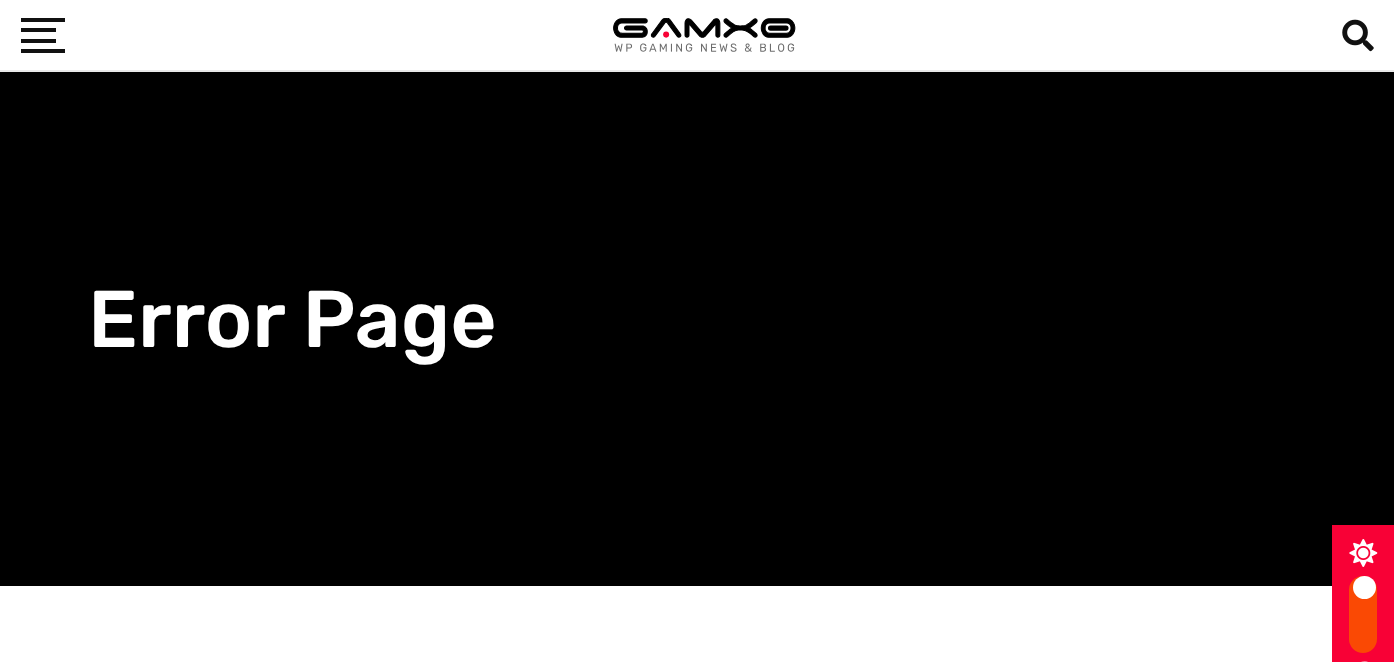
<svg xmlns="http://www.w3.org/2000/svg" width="1394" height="662">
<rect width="100%" height="100%" fill="#fff"/>
<rect y="70" width="1394" height="2" fill="#e9e9e9"/>
<rect x="21" y="18" width="44" height="4" fill="#111"/>
<rect x="21" y="28" width="35" height="4" fill="#111"/>
<rect x="21" y="39" width="35" height="4" fill="#111"/>
<rect x="21" y="49" width="44" height="4" fill="#111"/>
<image x="613" y="18" width="183" height="34" href="media/1.png"/>
<image x="1342" y="19" width="32" height="33" href="media/2.png"/>
<rect y="72" width="1394" height="514" fill="#000"/>
<text x="88" y="347" style="font-family:Rubik;font-size:80.5px;font-weight:500;fill:#fff">Error Page</text>
<rect x="1332" y="525" width="62" height="137" fill="#f80136"/>
<image x="1349" y="539" width="29" height="28" href="media/3.png"/>
<rect x="1349" y="576" width="28" height="77" rx="14" fill="#fa4904"/>
<circle cx="1364.5" cy="587.5" r="11.5" fill="#fff"/>
<image x="1361" y="661" width="7" height="1" href="media/4.png"/>
</svg>
